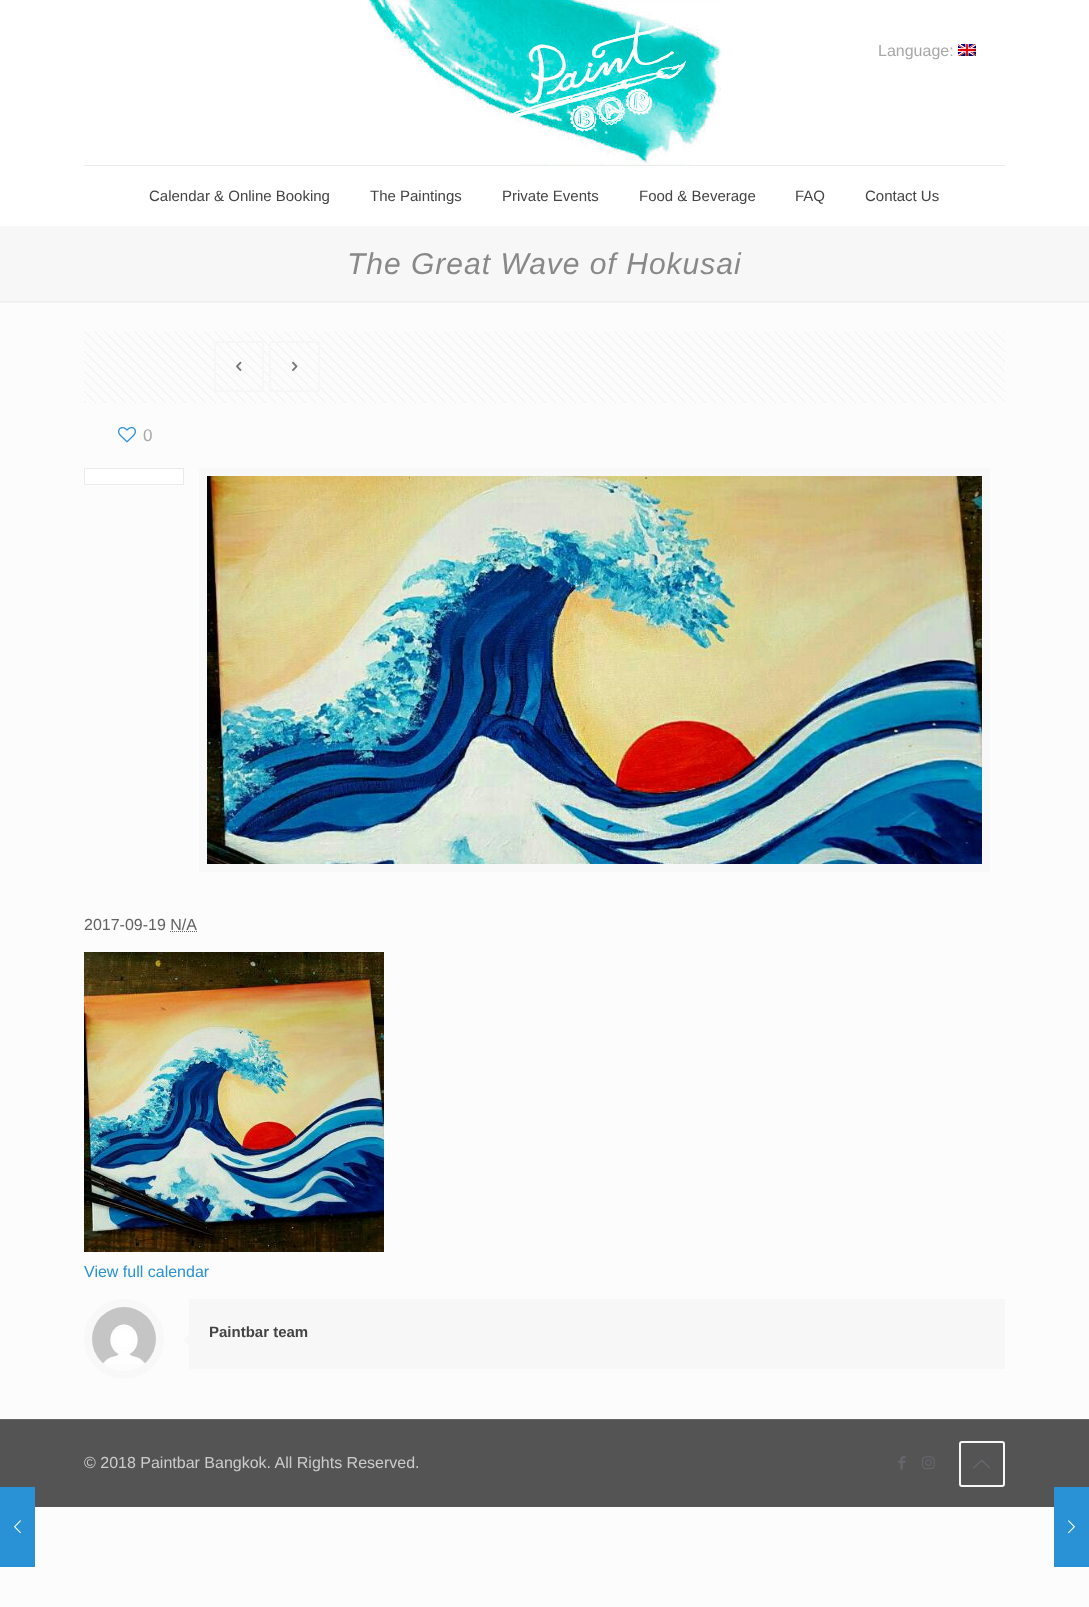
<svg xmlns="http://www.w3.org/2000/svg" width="1089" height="1607">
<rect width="100%" height="100%" fill="#fcfcfc"/>
<rect width="1089" height="226" fill="#fff"/>
<rect x="84" y="165" width="921" height="1" fill="#ebebeb"/>
<image x="368" y="0" width="353" height="165" href="media/1.png"/>
<text x="878" y="56" style="font-family:Liberation Sans;font-size:16px;fill:#a8a8a8">Language:</text>
<image x="958" y="44" width="18" height="12" href="media/2.png"/>
<text x="149" y="201" style="font-family:Liberation Sans;font-size:15px;fill:#444">Calendar &amp; Online Booking</text>
<text x="370" y="201" style="font-family:Liberation Sans;font-size:15px;fill:#444">The Paintings</text>
<text x="502" y="201" style="font-family:Liberation Sans;font-size:15px;fill:#444">Private Events</text>
<text x="639" y="201" style="font-family:Liberation Sans;font-size:15px;fill:#444">Food &amp; Beverage</text>
<text x="795" y="201" style="font-family:Liberation Sans;font-size:15px;fill:#444">FAQ</text>
<text x="865" y="201" style="font-family:Liberation Sans;font-size:15px;fill:#444">Contact Us</text>
<rect y="226" width="1089" height="75" fill="#f7f7f7"/>
<text x="347" y="274" style="font-family:Liberation Sans;font-size:30px;font-style:italic;letter-spacing:1px;fill:#888">The Great Wave of Hokusai</text>
<image x="0" y="301" width="1089" height="2" href="media/3.png"/>
<image x="84" y="331" width="921" height="72" href="media/4.png"/>
<rect x="215" y="342" width="48" height="49" rx="2" fill="none" stroke="#f7f7f7" stroke-width="2"/>
<image x="236" y="361" width="6" height="10" href="media/5.png"/>
<rect x="270" y="342" width="49" height="49" rx="2" fill="none" stroke="#f7f7f7" stroke-width="2"/>
<image x="292" y="361" width="6" height="10" href="media/6.png"/>
<image x="118" y="427" width="18" height="16" href="media/7.png"/>
<text x="143" y="441" style="font-family:Liberation Sans;font-size:17px;fill:#a8a8a8">0</text>
<rect x="84.5" y="468.5" width="99" height="16" fill="#fff" stroke="#ebebeb"/>
<rect x="203" y="472" width="783" height="396" fill="none" stroke="#f8f8f8" stroke-width="8"/>
<image x="207" y="476" width="775" height="388" href="media/8.png"/>
<text x="84" y="930" style="font-family:Liberation Sans;font-size:16px;fill:#626262">2017-09-19 N/A</text>
<path d="M170 931.5h27" fill="none" stroke="#626262" stroke-dasharray="1 1"/>
<image x="84" y="952" width="300" height="300" href="media/9.png"/>
<text x="84" y="1277" style="font-family:Liberation Sans;font-size:16px;fill:#2991d6">View full calendar</text>
<circle cx="124" cy="1339" r="36" fill="none" stroke="#f8f8f8" stroke-width="8"/>
<image x="92" y="1307" width="64" height="57" href="media/10.png"/>
<rect x="189" y="1299" width="816" height="70" fill="#f7f7f7"/>
<text x="209" y="1337" style="font-family:Liberation Sans;font-size:15px;font-weight:bold;fill:#444">Paintbar team</text>
<path d="M189 1334v12l-6-6z" fill="#f7f7f7"/>
<rect y="1420" width="1089" height="87" fill="#545454"/>
<rect y="1419" width="1089" height="1" fill="#656565"/>
<text x="84" y="1468" style="font-family:Liberation Sans;font-size:16px;fill:#ccc">© 2018 Paintbar Bangkok. All Rights Reserved.</text>
<image x="898" y="1456" width="8" height="14" href="media/11.png"/>
<image x="922" y="1456" width="13" height="14" href="media/12.png"/>
<rect x="960" y="1442" width="44" height="44" rx="2" fill="none" stroke="#f7f7f7" stroke-width="2"/>
<image x="973" y="1459" width="17" height="10" href="media/13.png"/>
<rect y="1487" width="35" height="80" fill="#2991d6"/>
<image x="14" y="1520" width="7" height="14" href="media/14.png"/>
<rect x="1054" y="1487" width="35" height="80" fill="#2991d6"/>
<image x="1068" y="1520" width="7" height="14" href="media/15.png"/>
</svg>
